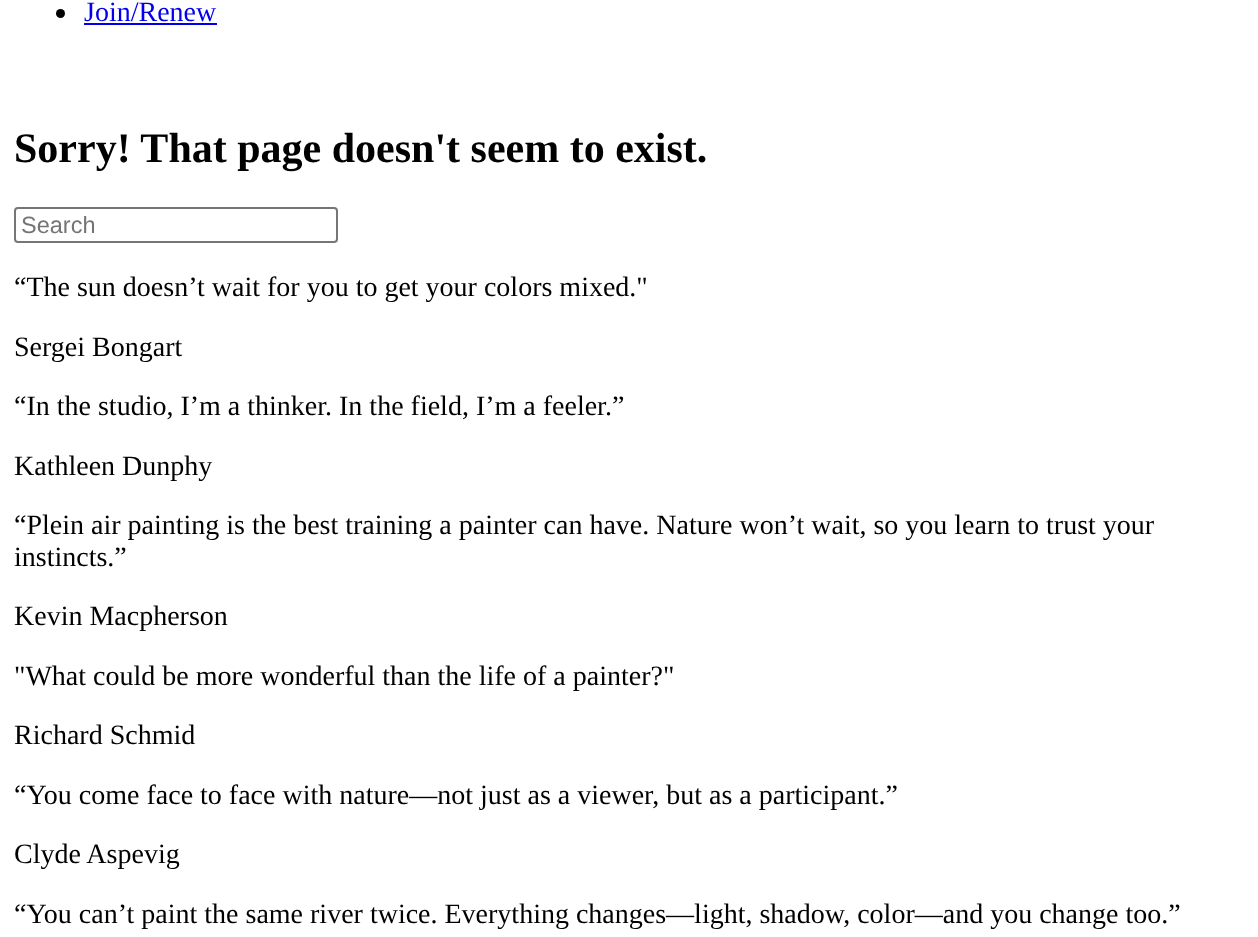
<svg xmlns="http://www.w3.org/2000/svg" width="1258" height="937">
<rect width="100%" height="100%" fill="#fff"/>
<circle cx="60.5" cy="13.5" r="4.5" fill="#000"/>
<text x="84" y="21" style="font-family:Liberation Serif;font-size:28px;fill:#00e">Join/Renew</text>
<rect x="84" y="23" width="133" height="2" fill="#00e"/>
<text x="14" y="162" style="font-family:Liberation Serif;font-size:42px;font-weight:bold;fill:#000">Sorry! That page doesn't seem to exist.</text>
<rect x="15" y="208" width="322" height="34" rx="3" fill="none" stroke="#767676" stroke-width="2"/>
<text x="21" y="233" style="font-family:Liberation Sans;font-size:23.5px;fill:#757575">Search</text>
<text x="14" y="296" style="font-family:Liberation Serif;font-size:28px;fill:#000">“The sun doesn’t wait for you to get your colors mixed."</text>
<text x="14" y="356" style="font-family:Liberation Serif;font-size:28px;fill:#000">Sergei Bongart</text>
<text x="14" y="415" style="font-family:Liberation Serif;font-size:28px;fill:#000">“In the studio, I’m a thinker. In the field, I’m a feeler.”</text>
<text x="14" y="475" style="font-family:Liberation Serif;font-size:28px;fill:#000">Kathleen Dunphy</text>
<text x="14" y="534" style="font-family:Liberation Serif;font-size:28px;fill:#000">“Plein air painting is the best training a painter can have. Nature won’t wait, so you learn to trust your</text>
<text x="14" y="566" style="font-family:Liberation Serif;font-size:28px;fill:#000">instincts.”</text>
<text x="14" y="625" style="font-family:Liberation Serif;font-size:28px;fill:#000">Kevin Macpherson</text>
<text x="14" y="685" style="font-family:Liberation Serif;font-size:28px;fill:#000">"What could be more wonderful than the life of a painter?"</text>
<text x="14" y="744" style="font-family:Liberation Serif;font-size:28px;fill:#000">Richard Schmid</text>
<text x="14" y="804" style="font-family:Liberation Serif;font-size:28px;fill:#000">“You come face to face with nature—not just as a viewer, but as a participant.”</text>
<text x="14" y="863" style="font-family:Liberation Serif;font-size:28px;fill:#000">Clyde Aspevig</text>
<text x="14" y="923" style="font-family:Liberation Serif;font-size:28px;fill:#000">“You can’t paint the same river twice. Everything changes—light, shadow, color—and you change too.”</text>
</svg>
